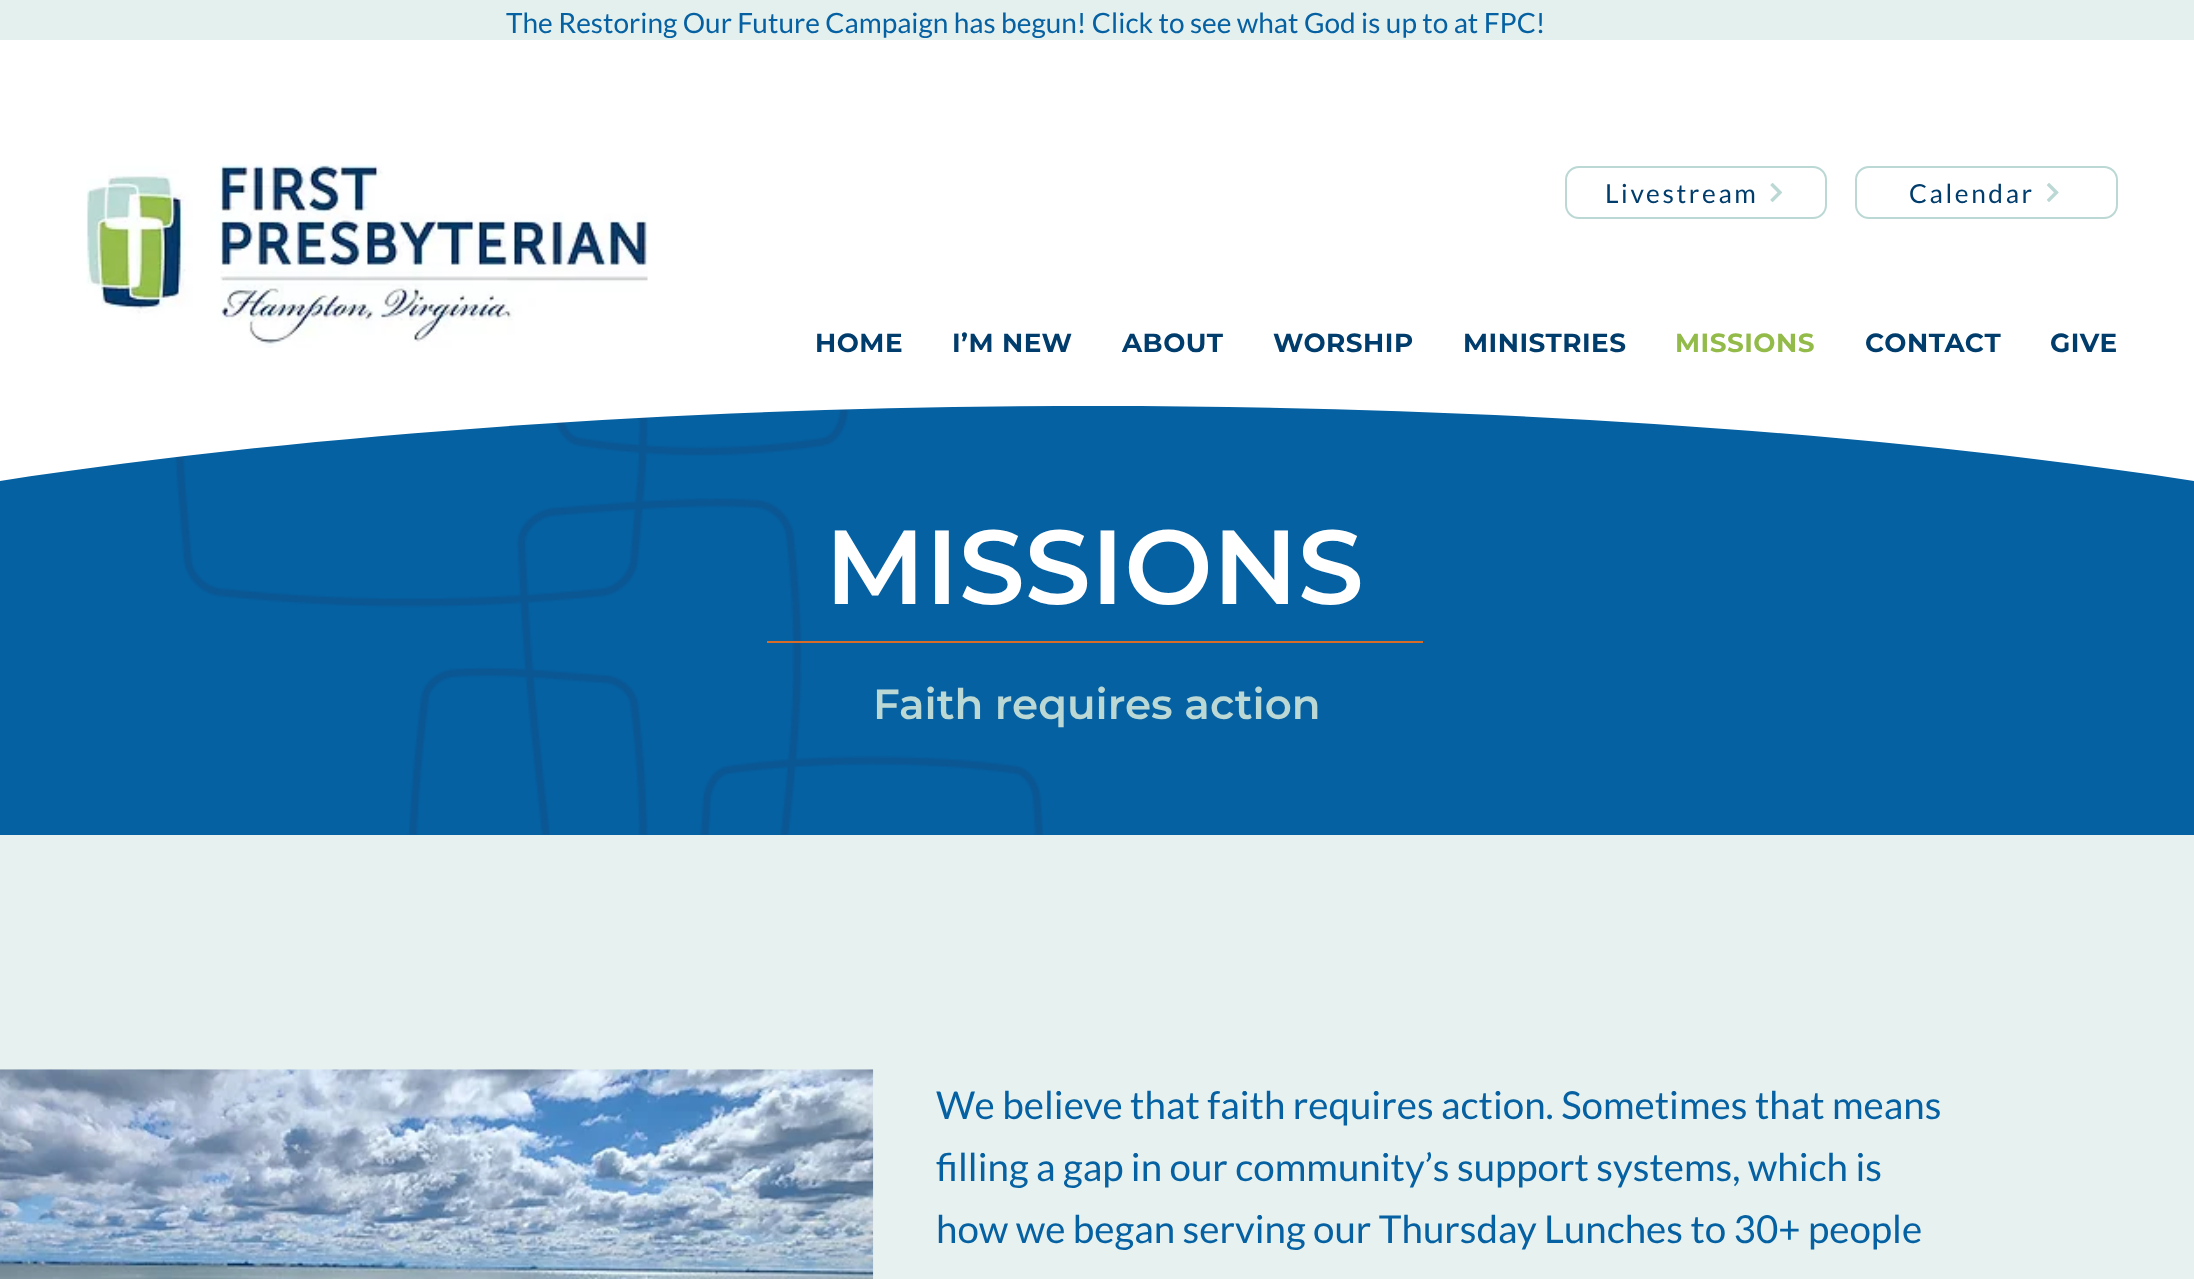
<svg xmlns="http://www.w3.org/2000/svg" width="2194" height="1279">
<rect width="100%" height="100%" fill="#fff"/>
<rect width="2194" height="40" fill="#e4f0ee"/>
<text x="506" y="33" style="font-family:Lato;font-size:28px;fill:#0661a2">The Restoring Our Future Campaign has begun! Click to see what God is up to at FPC!</text>
<image x="86" y="164" width="562" height="184" href="media/1.png"/>
<rect x="1566" y="167" width="260" height="51" rx="13" fill="none" stroke="#bbd8d4" stroke-width="2"/>
<text x="1605" y="203" style="font-family:Lato;font-size:26.25px;letter-spacing:2.6px;fill:#003d6c">Livestream</text>
<image x="1770" y="183" width="13" height="19" href="media/2.png"/>
<rect x="1856" y="167" width="261" height="51" rx="13" fill="none" stroke="#bbd8d4" stroke-width="2"/>
<text x="1909" y="203" style="font-family:Lato;font-size:26.25px;letter-spacing:2.6px;fill:#003d6c">Calendar</text>
<image x="2046" y="183" width="13" height="19" href="media/3.png"/>
<text x="815" y="352" style="font-family:Montserrat;font-size:26.25px;font-weight:bold;letter-spacing:0.5px;fill:#003d6c">HOME</text>
<text x="952" y="352" style="font-family:Montserrat;font-size:26.25px;font-weight:bold;letter-spacing:0.5px;fill:#003d6c">I’M NEW</text>
<text x="1122" y="352" style="font-family:Montserrat;font-size:26.25px;font-weight:bold;letter-spacing:0.5px;fill:#003d6c">ABOUT</text>
<text x="1273" y="352" style="font-family:Montserrat;font-size:26.25px;font-weight:bold;letter-spacing:0.5px;fill:#003d6c">WORSHIP</text>
<text x="1463" y="352" style="font-family:Montserrat;font-size:26.25px;font-weight:bold;letter-spacing:0.5px;fill:#003d6c">MINISTRIES</text>
<text x="1675" y="352" style="font-family:Montserrat;font-size:26.25px;font-weight:bold;letter-spacing:0.5px;fill:#93bb4a">MISSIONS</text>
<text x="1865" y="352" style="font-family:Montserrat;font-size:26.25px;font-weight:bold;letter-spacing:0.5px;fill:#003d6c">CONTACT</text>
<text x="2050" y="352" style="font-family:Montserrat;font-size:26.25px;font-weight:bold;letter-spacing:0.5px;fill:#003d6c">GIVE</text>
<rect y="406" width="2194" height="429" fill="#0661a2"/>
<image x="175" y="409" width="868" height="426" href="media/4.png"/>
<path d="M2194 481c-300-46-682-75-1097-75c-415 0-797 29-1097 75v4h2194zm-2194-75h2194v79h-2194z" fill="#fff" fill-rule="evenodd"/>
<text x="825" y="604" style="font-family:Montserrat;font-size:105px;font-weight:600;fill:#fff">MISSIONS</text>
<rect x="767" y="641" width="656" height="2" fill="#d76c28"/>
<text x="873" y="719" style="font-family:Montserrat;font-size:42px;font-weight:600;fill:#bbd8d4">Faith requires action</text>
<rect y="835" width="2194" height="444" fill="#e7f2f0"/>
<image x="0" y="1069" width="874" height="210" href="media/5.png"/>
<text x="936" y="1119" style="font-family:'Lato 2';font-size:38.5px;fill:#0661a2">We believe that faith requires action. Sometimes that means</text>
<text x="936" y="1181" style="font-family:'Lato 2';font-size:38.5px;fill:#0661a2">filling a gap in our community’s support systems, which is</text>
<text x="936" y="1243" style="font-family:'Lato 2';font-size:38.5px;fill:#0661a2">how we began serving our Thursday Lunches to 30+ people</text>
</svg>
